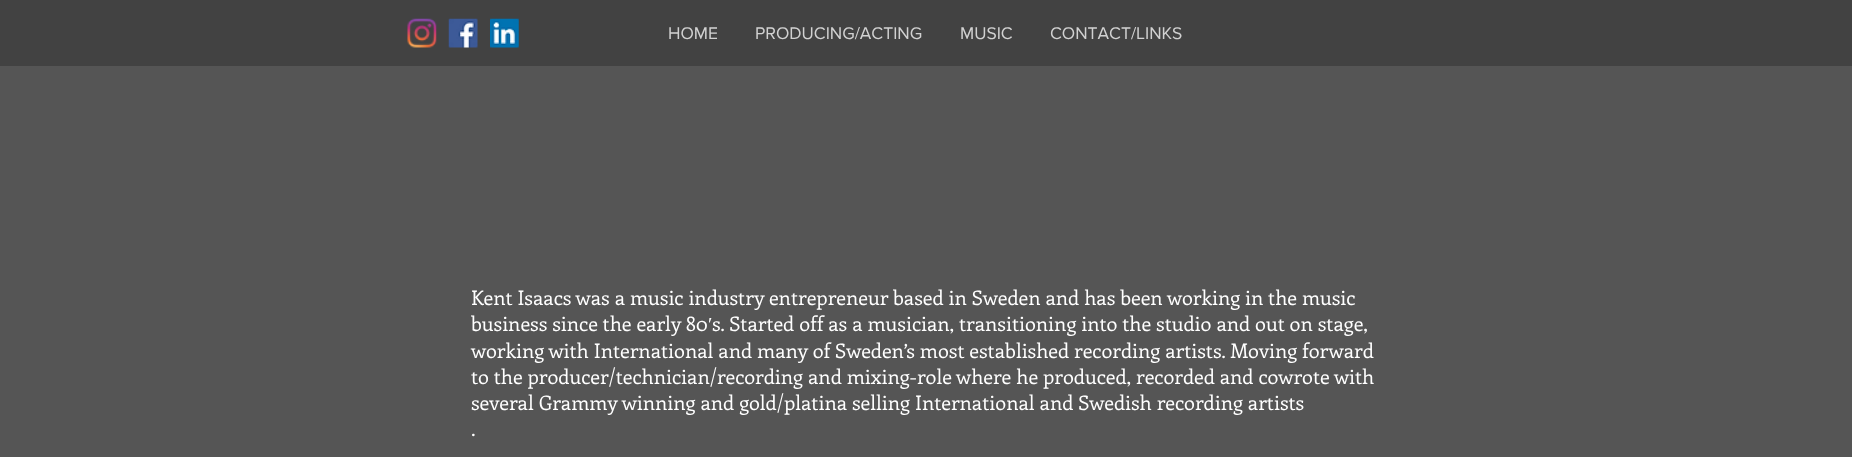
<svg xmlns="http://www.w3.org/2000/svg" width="1852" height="457">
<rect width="100%" height="100%" fill="#555"/>
<rect width="1852" height="66" fill="#424242"/>
<image x="407" y="18" width="30" height="30" href="media/1.png"/>
<image x="448" y="18" width="30" height="30" href="media/2.png"/>
<image x="490" y="18" width="29" height="30" href="media/3.png"/>
<text x="668" y="39" style="font-family:'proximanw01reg';font-size:17.5px;fill:#d1d1d1">HOME</text>
<text x="755" y="39" style="font-family:'proximanw01reg';font-size:17.5px;fill:#d1d1d1">PRODUCING/ACTING</text>
<text x="960" y="39" style="font-family:'proximanw01reg';font-size:17.5px;fill:#d1d1d1">MUSIC</text>
<text x="1050" y="39" style="font-family:'proximanw01reg';font-size:17.5px;fill:#d1d1d1">CONTACT/LINKS</text>
<text x="471" y="305" style="font-family:Enriqueta;font-size:20px;fill:#fff">Kent Isaacs was a music industry entrepreneur based in Sweden and has been working in the music</text>
<text x="471" y="331" style="font-family:Enriqueta;font-size:20px;fill:#fff">business since the early 80</text>
<text x="708" y="331" style="font-family:Liberation Serif;font-size:20px;fill:#fff">′</text>
<text x="712" y="331" style="font-family:Enriqueta;font-size:20px;fill:#fff">s. Started off as a musician, transitioning into the studio and out on stage,</text>
<text x="471" y="358" style="font-family:Enriqueta;font-size:20px;fill:#fff">working with International and many of Sweden’s most established recording artists. Moving forward</text>
<text x="471" y="384" style="font-family:Enriqueta;font-size:20px;fill:#fff">to the producer/technician/recording and mixing-role where he produced, recorded and cowrote with</text>
<text x="471" y="410" style="font-family:Enriqueta;font-size:20px;fill:#fff">several Grammy winning and gold/platina selling International and Swedish recording artists</text>
<text x="471" y="436" style="font-family:Enriqueta;font-size:20px;fill:#fff">.</text>
</svg>
